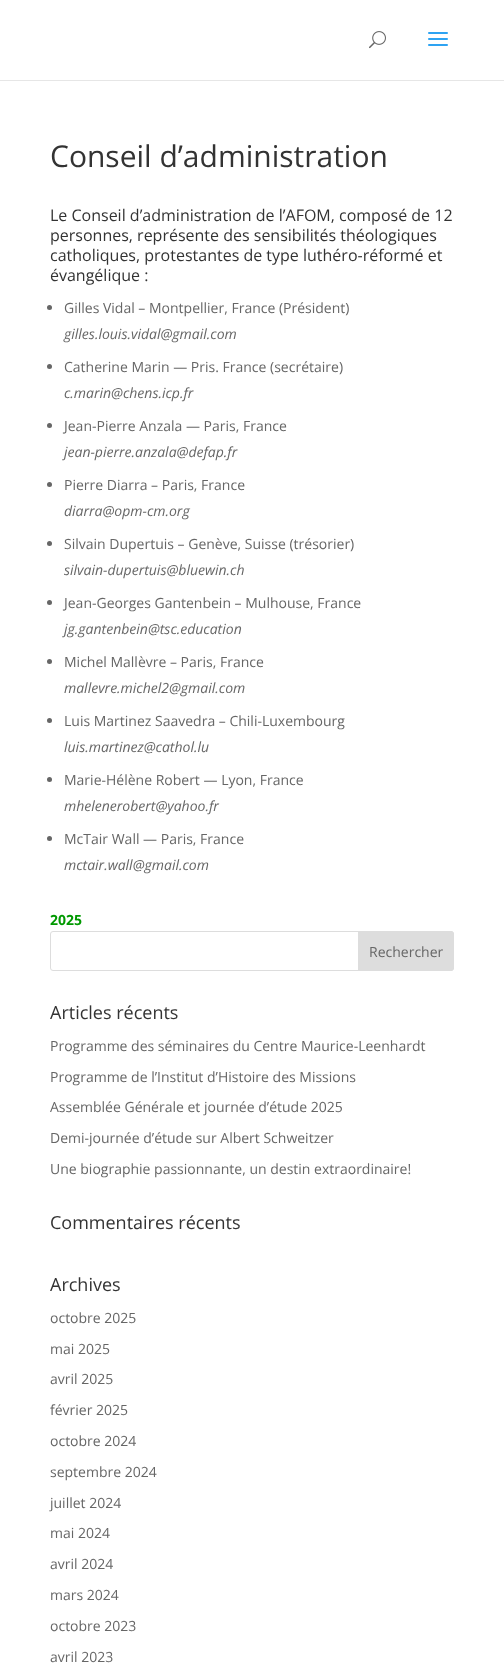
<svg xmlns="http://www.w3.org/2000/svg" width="504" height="1669">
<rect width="100%" height="100%" fill="#fff"/>
<rect y="80" width="504" height="1" fill="#e6e6e6"/>
<image x="369" y="31" width="17" height="18" href="media/1.png"/>
<image x="428" y="32" width="20" height="14" href="media/2.png"/>
<text x="50" y="167" style="font-family:Open Sans;font-size:30px;fill:#333">Conseil d’administration</text>
<text x="50" y="221" style="font-family:Open Sans;font-size:16px;fill:#333">Le Conseil d’administration de l’AFOM, composé de 12</text>
<text x="50" y="241" style="font-family:Open Sans;font-size:16px;fill:#333">personnes, représente des sensibilités théologiques</text>
<text x="50" y="261" style="font-family:Open Sans;font-size:16px;fill:#333">catholiques, protestantes de type luthéro-réformé et</text>
<text x="50" y="281" style="font-family:Open Sans;font-size:16px;fill:#333">évangélique :</text>
<circle cx="49.5" cy="307.5" r="2.5" fill="#666"/>
<text x="64" y="313" style="font-family:Open Sans;font-size:14px;fill:#666">Gilles Vidal – Montpellier, France (Président)</text>
<text x="64" y="339" style="font-family:Open Sans;font-size:14px;font-style:italic;fill:#666">gilles.louis.vidal@gmail.com</text>
<circle cx="49.5" cy="366.5" r="2.5" fill="#666"/>
<text x="64" y="372" style="font-family:Open Sans;font-size:14px;fill:#666">Catherine Marin — Pris. France (secrétaire)</text>
<text x="64" y="398" style="font-family:Open Sans;font-size:14px;font-style:italic;fill:#666">c.marin@chens.icp.fr</text>
<circle cx="49.5" cy="425.5" r="2.5" fill="#666"/>
<text x="64" y="431" style="font-family:Open Sans;font-size:14px;fill:#666">Jean-Pierre Anzala — Paris, France</text>
<text x="64" y="457" style="font-family:Open Sans;font-size:14px;font-style:italic;fill:#666">jean-pierre.anzala@defap.fr</text>
<circle cx="49.5" cy="484.5" r="2.5" fill="#666"/>
<text x="64" y="490" style="font-family:Open Sans;font-size:14px;fill:#666">Pierre Diarra – Paris, France</text>
<text x="64" y="516" style="font-family:Open Sans;font-size:14px;font-style:italic;fill:#666">diarra@opm-cm.org</text>
<circle cx="49.5" cy="543.5" r="2.5" fill="#666"/>
<text x="64" y="549" style="font-family:Open Sans;font-size:14px;fill:#666">Silvain Dupertuis – Genève, Suisse (trésorier)</text>
<text x="64" y="575" style="font-family:Open Sans;font-size:14px;font-style:italic;fill:#666">silvain-dupertuis@bluewin.ch</text>
<circle cx="49.5" cy="602.5" r="2.5" fill="#666"/>
<text x="64" y="608" style="font-family:Open Sans;font-size:14px;fill:#666">Jean-Georges Gantenbein – Mulhouse, France</text>
<text x="64" y="634" style="font-family:Open Sans;font-size:14px;font-style:italic;fill:#666">jg.gantenbein@tsc.education</text>
<circle cx="49.5" cy="661.5" r="2.5" fill="#666"/>
<text x="64" y="667" style="font-family:Open Sans;font-size:14px;fill:#666">Michel Mallèvre – Paris, France</text>
<text x="64" y="693" style="font-family:Open Sans;font-size:14px;font-style:italic;fill:#666">mallevre.michel2@gmail.com</text>
<circle cx="49.5" cy="720.5" r="2.5" fill="#666"/>
<text x="64" y="726" style="font-family:Open Sans;font-size:14px;fill:#666">Luis Martinez Saavedra – Chili-Luxembourg</text>
<text x="64" y="752" style="font-family:Open Sans;font-size:14px;font-style:italic;fill:#666">luis.martinez@cathol.lu</text>
<circle cx="49.5" cy="779.5" r="2.5" fill="#666"/>
<text x="64" y="785" style="font-family:Open Sans;font-size:14px;fill:#666">Marie-Hélène Robert — Lyon, France</text>
<text x="64" y="811" style="font-family:Open Sans;font-size:14px;font-style:italic;fill:#666">mhelenerobert@yahoo.fr</text>
<circle cx="49.5" cy="838.5" r="2.5" fill="#666"/>
<text x="64" y="844" style="font-family:Open Sans;font-size:14px;fill:#666">McTair Wall — Paris, France</text>
<text x="64" y="870" style="font-family:Open Sans;font-size:14px;font-style:italic;fill:#666">mctair.wall@gmail.com</text>
<text x="50" y="925" style="font-family:Open Sans;font-size:14px;font-weight:bold;fill:#090">2025</text>
<rect x="50.5" y="931.5" width="403" height="39" rx="2.5" fill="none" stroke="#ddd"/>
<path d="M358.5 931.5h92.5c1.5 0 2.5 1 2.5 2.5v34c0 1.5-1 2.5-2.5 2.5h-92.5z" fill="#ddd" stroke="#ddd"/>
<text x="369" y="957" style="font-family:Open Sans;font-size:14px;fill:#666">Rechercher</text>
<text x="50" y="1019" style="font-family:Open Sans;font-size:18px;fill:#333">Articles récents</text>
<text x="50" y="1051" style="font-family:Open Sans;font-size:14px;fill:#666">Programme des séminaires du Centre Maurice-Leenhardt</text>
<text x="50" y="1082" style="font-family:Open Sans;font-size:14px;fill:#666">Programme de l’Institut d’Histoire des Missions</text>
<text x="50" y="1112" style="font-family:Open Sans;font-size:14px;fill:#666">Assemblée Générale et journée d’étude 2025</text>
<text x="50" y="1143" style="font-family:Open Sans;font-size:14px;fill:#666">Demi-journée d’étude sur Albert Schweitzer</text>
<text x="50" y="1174" style="font-family:Open Sans;font-size:14px;fill:#666">Une biographie passionnante, un destin extraordinaire!</text>
<text x="50" y="1229" style="font-family:Open Sans;font-size:18px;fill:#333">Commentaires récents</text>
<text x="50" y="1291" style="font-family:Open Sans;font-size:18px;fill:#333">Archives</text>
<text x="50" y="1323" style="font-family:Open Sans;font-size:14px;fill:#666">octobre 2025</text>
<text x="50" y="1354" style="font-family:Open Sans;font-size:14px;fill:#666">mai 2025</text>
<text x="50" y="1384" style="font-family:Open Sans;font-size:14px;fill:#666">avril 2025</text>
<text x="50" y="1415" style="font-family:Open Sans;font-size:14px;fill:#666">février 2025</text>
<text x="50" y="1446" style="font-family:Open Sans;font-size:14px;fill:#666">octobre 2024</text>
<text x="50" y="1477" style="font-family:Open Sans;font-size:14px;fill:#666">septembre 2024</text>
<text x="50" y="1508" style="font-family:Open Sans;font-size:14px;fill:#666">juillet 2024</text>
<text x="50" y="1538" style="font-family:Open Sans;font-size:14px;fill:#666">mai 2024</text>
<text x="50" y="1569" style="font-family:Open Sans;font-size:14px;fill:#666">avril 2024</text>
<text x="50" y="1600" style="font-family:Open Sans;font-size:14px;fill:#666">mars 2024</text>
<text x="50" y="1631" style="font-family:Open Sans;font-size:14px;fill:#666">octobre 2023</text>
<text x="50" y="1662" style="font-family:Open Sans;font-size:14px;fill:#666">avril 2023</text>
</svg>
